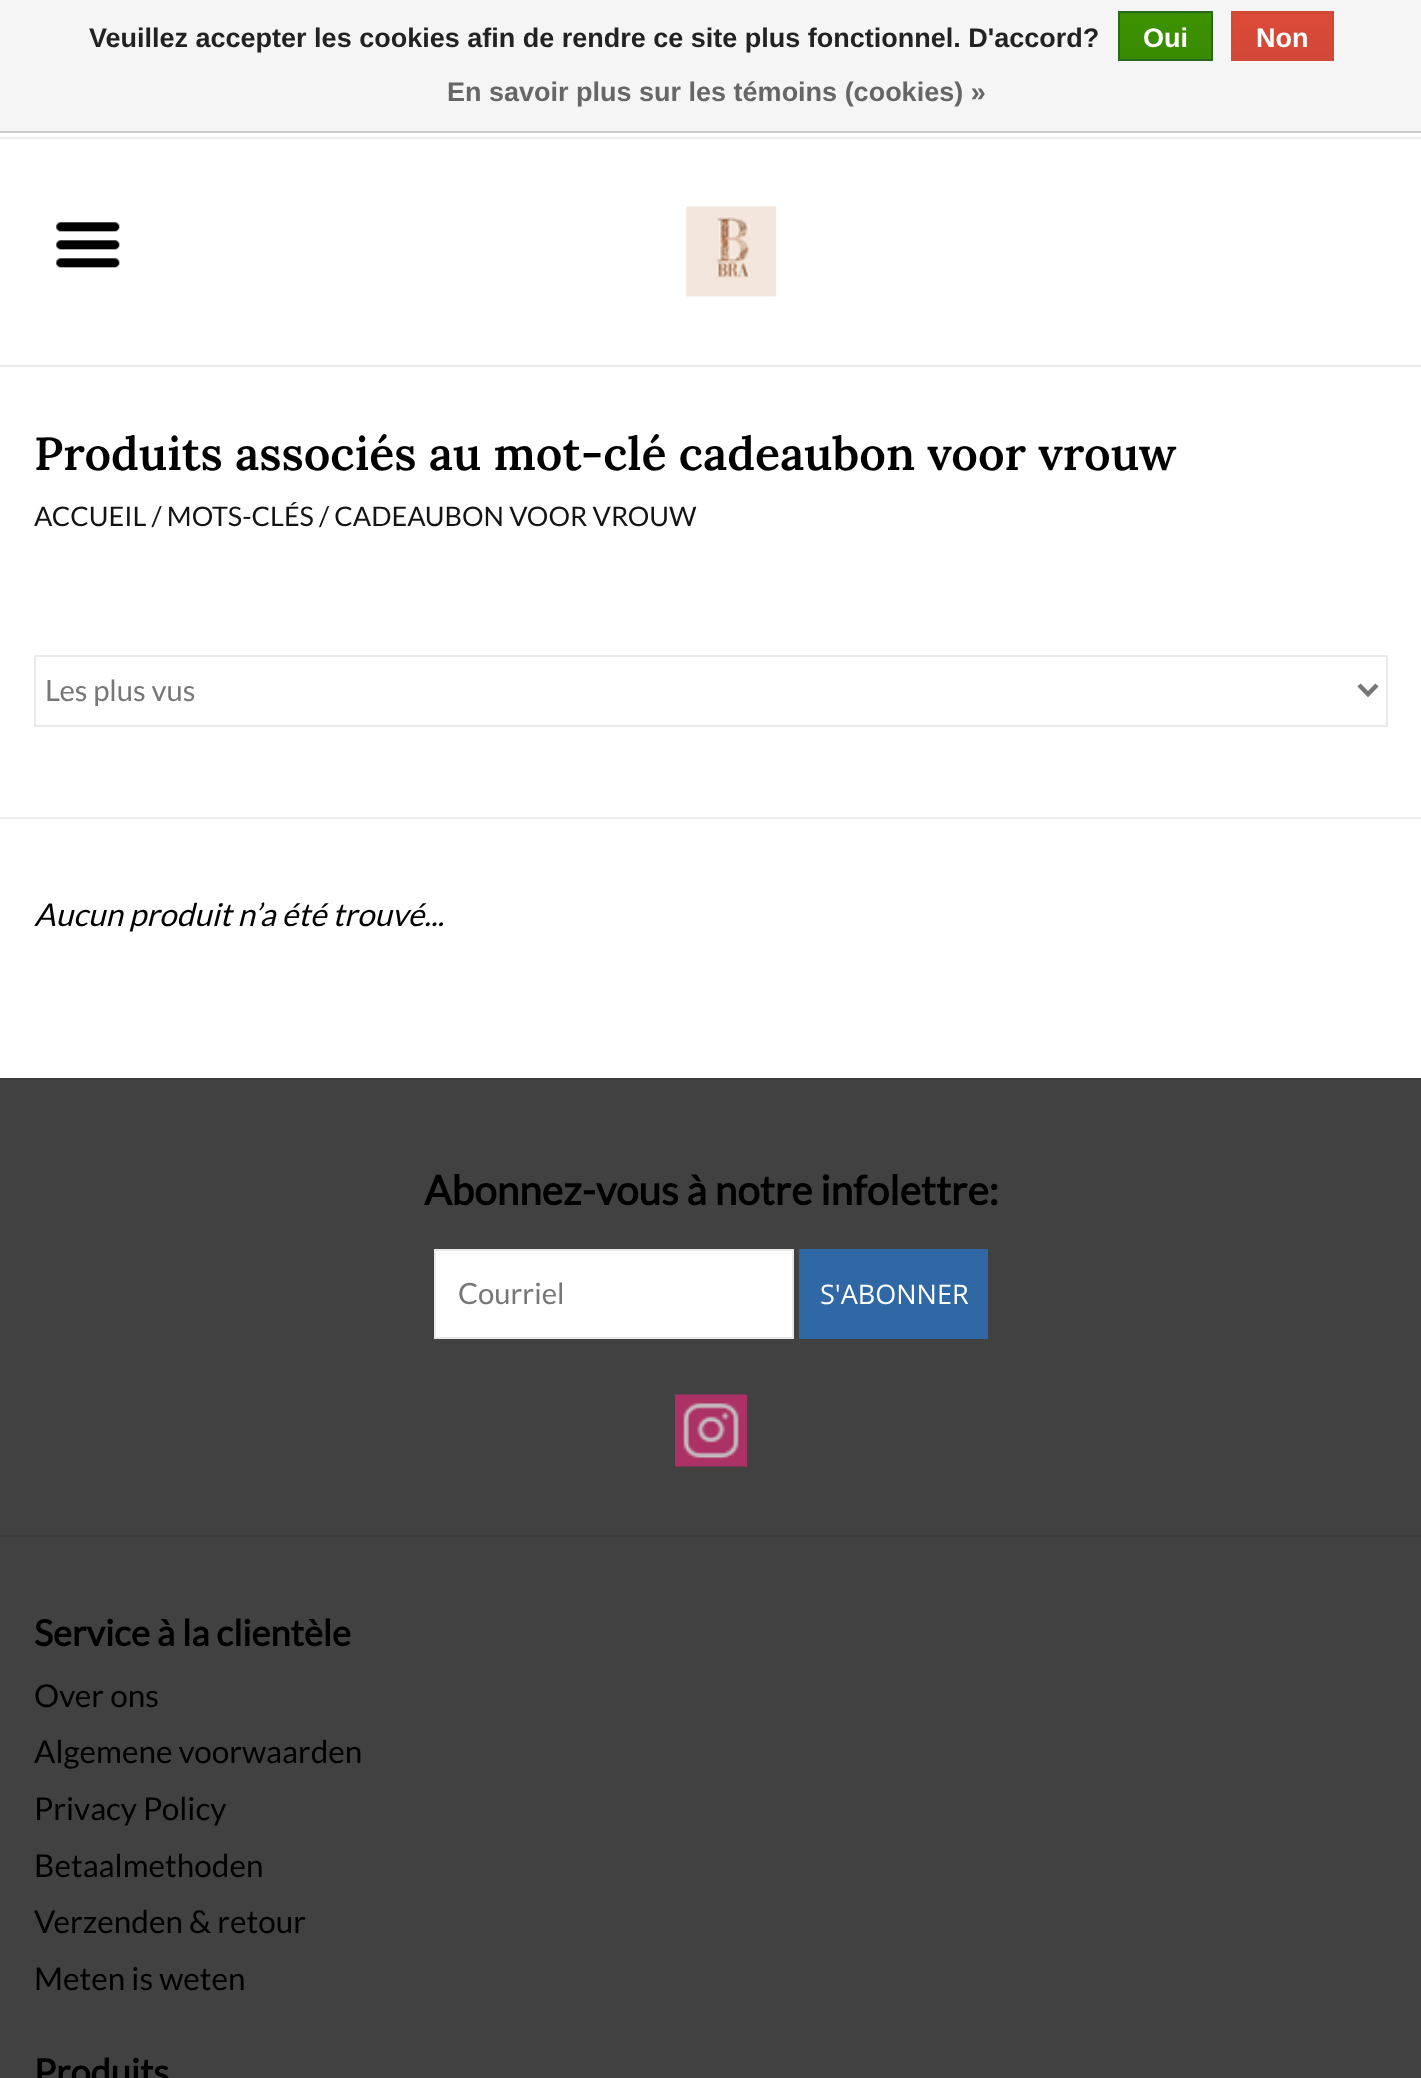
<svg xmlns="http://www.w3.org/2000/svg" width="1421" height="2078">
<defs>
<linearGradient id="g1" gradientUnits="userSpaceOnUse" x1="1166" y1="-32" x2="1166" y2="14"><stop offset="0" stop-color="#3c9300"/><stop offset="1" stop-color="#398a00"/></linearGradient>
<linearGradient id="g2" gradientUnits="userSpaceOnUse" x1="1166" y1="13" x2="1166" y2="59"><stop offset="0" stop-color="#3c9300"/><stop offset="1" stop-color="#398a00"/></linearGradient>
<linearGradient id="g3" gradientUnits="userSpaceOnUse" x1="1283" y1="-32" x2="1283" y2="14"><stop offset="0" stop-color="#dc4a38"/><stop offset="1" stop-color="#d14836"/></linearGradient>
<linearGradient id="g4" gradientUnits="userSpaceOnUse" x1="1283" y1="13" x2="1283" y2="59"><stop offset="0" stop-color="#dc4a38"/><stop offset="1" stop-color="#d14836"/></linearGradient>
</defs>
<rect width="100%" height="100%" fill="#fff"/>
<rect width="1421" height="131" fill="#f5f5f5"/>
<rect y="131" width="1421" height="2" fill="#ccc"/>
<text x="89" y="47" style="font-family:Liberation Sans;font-size:27px;font-weight:bold;fill:#222">Veuillez accepter les cookies afin de rendre ce site plus fonctionnel. D'accord?</text>
<rect x="1118" y="13" width="95" height="1" fill="url(#g1)"/>
<rect x="1120" y="14" width="91" height="45" fill="url(#g2)"/>
<rect x="1119" y="12" width="93" height="48" fill="none" stroke="#29691d" stroke-width="2"/>
<text x="1143" y="47" style="font-family:Liberation Sans;font-size:27px;font-weight:bold;fill:#fff">Oui</text>
<rect x="1231" y="13" width="103" height="1" fill="url(#g3)"/>
<rect x="1233" y="14" width="99" height="45" fill="url(#g4)"/>
<rect x="1232" y="12" width="101" height="48" fill="none" stroke="#d14836" stroke-width="2"/>
<text x="1256" y="47" style="font-family:Liberation Sans;font-size:27px;font-weight:bold;fill:#fff">Non</text>
<text x="447" y="101" style="font-family:Liberation Sans;font-size:27px;font-weight:bold;fill:#666">En savoir plus sur les témoins (cookies) »</text>
<rect y="137" width="1421" height="2" fill="#ededed"/>
<rect y="365" width="1421" height="2" fill="#eaeaea"/>
<image x="686" y="206" width="91" height="91" href="media/1.png"/>
<image x="56" y="222" width="64" height="46" href="media/2.png"/>
<text x="34" y="470" style="font-family:Lora;font-size:46.5px;font-weight:600;fill:#000">Produits associés au mot-clé cadeaubon voor vrouw</text>
<text x="34" y="526" style="font-family:Lato;font-size:27px;fill:#141414">ACCUEIL / MOTS-CLÉS / CADEAUBON VOOR VROUW</text>
<rect y="817" width="1421" height="2" fill="#f0f0f0"/>
<rect x="35" y="656" width="1352" height="70" fill="none" stroke="#eaeaea" stroke-width="2"/>
<path d="M1359 685l9 9l9-9" fill="none" stroke="#777" stroke-width="4.5"/>
<text x="45" y="701" style="font-family:Lato;font-size:29.25px;fill:#777">Les plus vus</text>
<text x="34" y="926" style="font-family:Lato;font-size:31.5px;font-style:italic;fill:#000">Aucun produit n’a été trouvé...</text>
<rect y="1080" width="1421" height="998" fill="#414141"/>
<rect y="1078" width="1421" height="2" fill="#3b3b3b"/>
<text x="424" y="1205" style="font-family:Lato;font-size:40.5px;font-weight:bold;fill:#000">Abonnez-vous à notre infolettre:</text>
<rect x="435" y="1250" width="358" height="88" fill="#fff" stroke="#e9e9e9" stroke-width="2"/>
<text x="458" y="1304" style="font-family:Lato;font-size:29.25px;fill:#777">Courriel</text>
<rect x="799" y="1249" width="189" height="90" fill="#2f68a4"/>
<text x="820" y="1304" style="font-family:Open Sans;font-size:27px;fill:#fff">S'ABONNER</text>
<image x="675" y="1394" width="72" height="73" href="media/3.png"/>
<rect y="1535" width="1421" height="2" fill="#3b3b3b"/>
<text x="34" y="1646" style="font-family:Lato;font-size:36px;font-weight:bold;fill:#000">Service à la clientèle</text>
<text x="34" y="1707" style="font-family:Lato;font-size:31.5px;fill:#000">Over ons</text>
<text x="34" y="1763" style="font-family:Lato;font-size:31.5px;fill:#000">Algemene voorwaarden</text>
<text x="34" y="1820" style="font-family:Lato;font-size:31.5px;fill:#000">Privacy Policy</text>
<text x="34" y="1877" style="font-family:Lato;font-size:31.5px;fill:#000">Betaalmethoden</text>
<text x="34" y="1933" style="font-family:Lato;font-size:31.5px;fill:#000">Verzenden &amp; retour</text>
<text x="34" y="1990" style="font-family:Lato;font-size:31.5px;fill:#000">Meten is weten</text>
<text x="34" y="2085" style="font-family:Lato;font-size:36px;font-weight:bold;fill:#000">Produits</text>
</svg>
